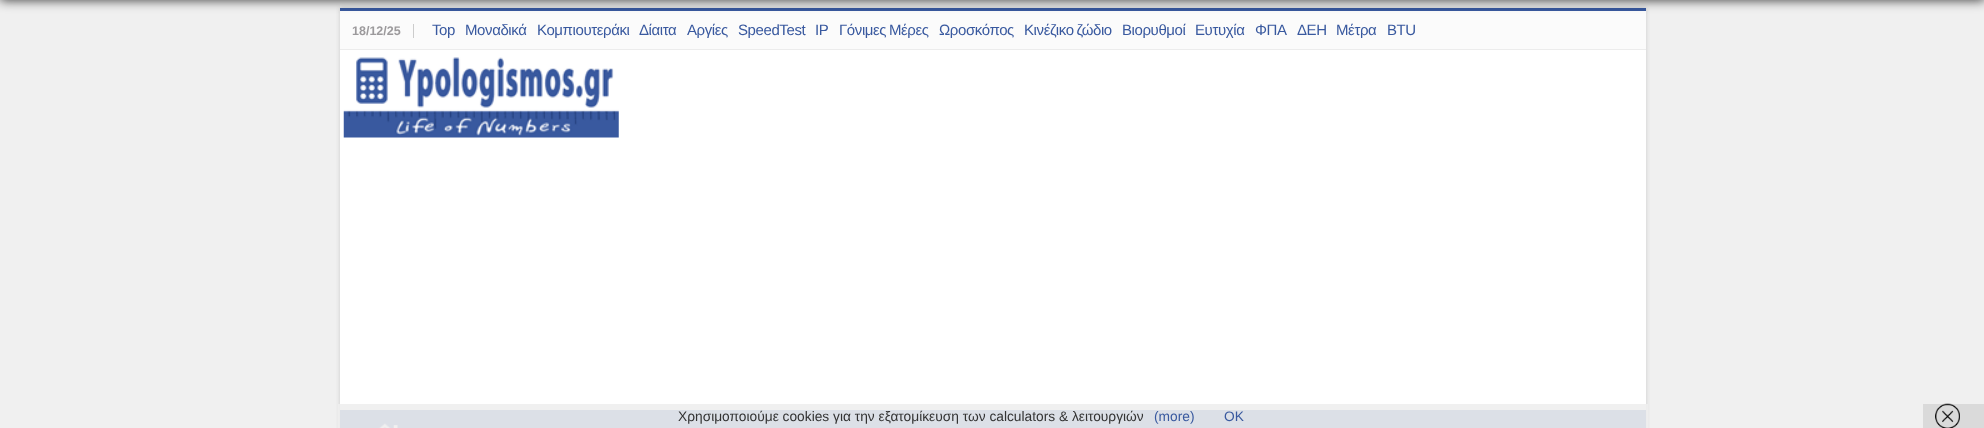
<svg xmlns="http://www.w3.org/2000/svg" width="1984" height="428">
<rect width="100%" height="100%" fill="#f0f0f0"/>
<rect x="340" y="8" width="1306" height="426" fill="#cacaca" filter="blur(2px)"/>
<rect x="340" y="8" width="1306" height="3" fill="#39599f"/>
<rect x="340" y="11" width="1306" height="38" fill="#fbfbfb"/>
<rect y="-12" width="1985" height="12" fill="#000000cc" filter="blur(6px)"/>
<rect x="340" y="50" width="1306" height="360" fill="#fff"/>
<rect x="340" y="49" width="1306" height="1" fill="#ececec"/>
<rect x="413" y="24" width="1" height="14" fill="#ccc"/>
<text x="352" y="35" style="font-family:Liberation Sans;font-size:12.5px;font-weight:bold;fill:#9c9a9c">18/12/25</text>
<text x="432" y="35" style="font-family:Liberation Sans;font-size:15px;letter-spacing:-0.4px;fill:#39599f">Top</text>
<text x="465" y="35" style="font-family:Liberation Sans;font-size:15px;letter-spacing:-0.4px;fill:#39599f">Μοναδικά</text>
<text x="537" y="35" style="font-family:Liberation Sans;font-size:15px;letter-spacing:-0.4px;fill:#39599f">Κομπιουτεράκι</text>
<text x="639" y="35" style="font-family:Liberation Sans;font-size:15px;letter-spacing:-0.4px;fill:#39599f">Δίαιτα</text>
<text x="687" y="35" style="font-family:Liberation Sans;font-size:15px;letter-spacing:-0.4px;fill:#39599f">Αργίες</text>
<text x="738" y="35" style="font-family:Liberation Sans;font-size:15px;letter-spacing:-0.4px;fill:#39599f">SpeedTest</text>
<text x="815" y="35" style="font-family:Liberation Sans;font-size:15px;letter-spacing:-0.4px;fill:#39599f">IP</text>
<text x="839" y="35" word-spacing="-1" style="font-family:Liberation Sans;font-size:15px;letter-spacing:-0.4px;fill:#39599f">Γόνιμες Μέρες</text>
<text x="939" y="35" style="font-family:Liberation Sans;font-size:15px;letter-spacing:-0.4px;fill:#39599f">Ωροσκόπος</text>
<text x="1024" y="35" word-spacing="-1" style="font-family:Liberation Sans;font-size:15px;letter-spacing:-0.4px;fill:#39599f">Κινέζικο ζώδιο</text>
<text x="1122" y="35" style="font-family:Liberation Sans;font-size:15px;letter-spacing:-0.4px;fill:#39599f">Βιορυθμοί</text>
<text x="1195" y="35" style="font-family:Liberation Sans;font-size:15px;letter-spacing:-0.4px;fill:#39599f">Ευτυχία</text>
<text x="1255" y="35" style="font-family:Liberation Sans;font-size:15px;letter-spacing:-0.4px;fill:#39599f">ΦΠΑ</text>
<text x="1297" y="35" style="font-family:Liberation Sans;font-size:15px;letter-spacing:-0.4px;fill:#39599f">ΔΕΗ</text>
<text x="1336" y="35" style="font-family:Liberation Sans;font-size:15px;letter-spacing:-0.4px;fill:#39599f">Μέτρα</text>
<text x="1387" y="35" style="font-family:Liberation Sans;font-size:15px;letter-spacing:-0.4px;fill:#39599f">BTU</text>
<image x="343" y="57" width="276" height="81" href="media/1.png"/>
<rect x="340" y="410" width="1306" height="18" fill="#39599f"/>
<image x="378" y="423" width="20" height="5" href="media/2.png"/>
<rect x="338" y="404" width="1310" height="24" fill="#eeeeeee6"/>
<text x="678" y="421" style="font-family:Liberation Sans;font-size:13.75px;fill:#333">Χρησιμοποιούμε cookies για την εξατομίκευση των calculators &amp; λειτουργιών</text>
<text x="1154" y="421" style="font-family:Liberation Sans;font-size:13.75px;fill:#39599f">(more)</text>
<text x="1224" y="421" style="font-family:Liberation Sans;font-size:13.75px;fill:#39599f">ΟΚ</text>
<rect x="1923" y="404" width="61" height="24" fill="#dadada"/>
<image x="1935" y="403" width="25" height="25" href="media/3.png"/>
</svg>
